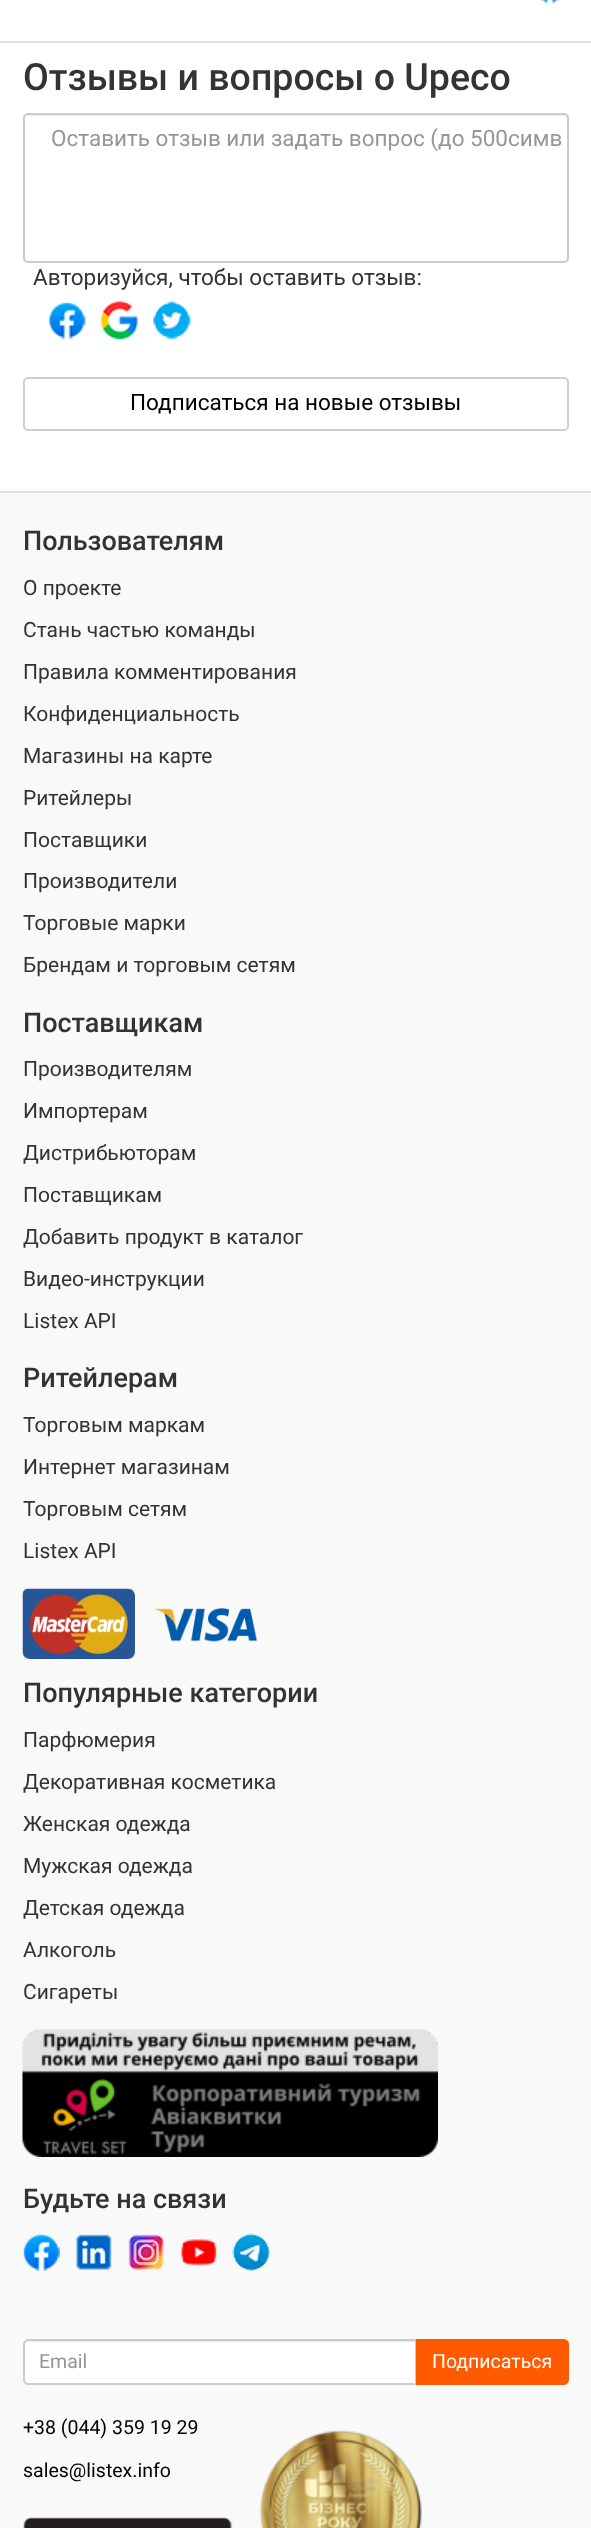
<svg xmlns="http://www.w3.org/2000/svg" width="591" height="2528">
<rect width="100%" height="100%" fill="#fff"/>
<image x="540" y="0" width="20" height="3" href="media/1.png"/>
<rect y="41" width="591" height="2" fill="#e1e1e1"/>
<text x="23" y="90" style="font-family:Roboto;font-size:37.5px;font-weight:500;fill:#333">Отзывы и вопросы о Upeco</text>
<path d="M27 116h537c2 0 3 1 3 2v-1c0-2-1-3-3-3h-537c-2 0-3 1-3 3v1c0-1 1-2 3-2z" fill="#ececec"/>
<rect x="24" y="114" width="544" height="148" rx="4" fill="none" stroke="#ccc" stroke-width="2"/>
<text x="51" y="146" style="font-family:Roboto;font-size:22.5px;fill:#969696">Оставить отзыв или задать вопрос (до 500симв</text>
<text x="33" y="285" style="font-family:Roboto;font-size:22.5px;fill:#333">Авторизуйся, чтобы оставить отзыв:</text>
<image x="49" y="302" width="37" height="37" href="media/2.png"/>
<image x="100" y="301" width="38" height="38" href="media/3.png"/>
<image x="153" y="301" width="38" height="38" href="media/4.png"/>
<rect x="24" y="378" width="544" height="52" rx="4" fill="none" stroke="#cfcfcf" stroke-width="2"/>
<text x="130" y="410" style="font-family:Roboto;font-size:22.5px;fill:#000">Подписаться на новые отзывы</text>
<rect y="493" width="591" height="2035" fill="#f9f9f9"/>
<rect y="491" width="591" height="2" fill="#e1e1e1"/>
<text x="23" y="550" style="font-family:Roboto;font-size:27px;font-weight:500;fill:#333">Пользователям</text>
<text x="23" y="595" style="font-family:Roboto;font-size:21px;fill:#333">О проекте</text>
<text x="23" y="637" style="font-family:Roboto;font-size:21px;fill:#333">Стань частью команды</text>
<text x="23" y="679" style="font-family:Roboto;font-size:21px;fill:#333">Правила комментирования</text>
<text x="23" y="721" style="font-family:Roboto;font-size:21px;fill:#333">Конфиденциальность</text>
<text x="23" y="763" style="font-family:Roboto;font-size:21px;fill:#333">Магазины на карте</text>
<text x="23" y="805" style="font-family:Roboto;font-size:21px;fill:#333">Ритейлеры</text>
<text x="23" y="847" style="font-family:Roboto;font-size:21px;fill:#333">Поставщики</text>
<text x="23" y="888" style="font-family:Roboto;font-size:21px;fill:#333">Производители</text>
<text x="23" y="930" style="font-family:Roboto;font-size:21px;fill:#333">Торговые марки</text>
<text x="23" y="972" style="font-family:Roboto;font-size:21px;fill:#333">Брендам и торговым сетям</text>
<text x="23" y="1032" style="font-family:Roboto;font-size:27px;font-weight:500;fill:#333">Поставщикам</text>
<text x="23" y="1076" style="font-family:Roboto;font-size:21px;fill:#333">Производителям</text>
<text x="23" y="1118" style="font-family:Roboto;font-size:21px;fill:#333">Импортерам</text>
<text x="23" y="1160" style="font-family:Roboto;font-size:21px;fill:#333">Дистрибьюторам</text>
<text x="23" y="1202" style="font-family:Roboto;font-size:21px;fill:#333">Поставщикам</text>
<text x="23" y="1244" style="font-family:Roboto;font-size:21px;fill:#333">Добавить продукт в каталог</text>
<text x="23" y="1286" style="font-family:Roboto;font-size:21px;fill:#333">Видео-инструкции</text>
<text x="23" y="1328" style="font-family:Roboto;font-size:21px;fill:#333">Listex API</text>
<text x="23" y="1387" style="font-family:Roboto;font-size:27px;font-weight:500;fill:#333">Ритейлерам</text>
<text x="23" y="1432" style="font-family:Roboto;font-size:21px;fill:#333">Торговым маркам</text>
<text x="23" y="1474" style="font-family:Roboto;font-size:21px;fill:#333">Интернет магазинам</text>
<text x="23" y="1516" style="font-family:Roboto;font-size:21px;fill:#333">Торговым сетям</text>
<text x="23" y="1558" style="font-family:Roboto;font-size:21px;fill:#333">Listex API</text>
<image x="22" y="1588" width="113" height="71" href="media/5.png"/>
<image x="155" y="1608" width="103" height="34" href="media/6.png"/>
<text x="23" y="1702" style="font-family:Roboto;font-size:27px;font-weight:500;fill:#333">Популярные категории</text>
<text x="23" y="1747" style="font-family:Roboto;font-size:21px;fill:#333">Парфюмерия</text>
<text x="23" y="1789" style="font-family:Roboto;font-size:21px;fill:#333">Декоративная косметика</text>
<text x="23" y="1831" style="font-family:Roboto;font-size:21px;fill:#333">Женская одежда</text>
<text x="23" y="1873" style="font-family:Roboto;font-size:21px;fill:#333">Мужская одежда</text>
<text x="23" y="1915" style="font-family:Roboto;font-size:21px;fill:#333">Детская одежда</text>
<text x="23" y="1957" style="font-family:Roboto;font-size:21px;fill:#333">Алкоголь</text>
<text x="23" y="1999" style="font-family:Roboto;font-size:21px;fill:#333">Сигареты</text>
<image x="22" y="2029" width="416" height="128" href="media/7.png"/>
<text x="23" y="2208" style="font-family:Roboto;font-size:27px;font-weight:500;fill:#333">Будьте на связи</text>
<image x="23" y="2234" width="37" height="37" href="media/8.png"/>
<image x="76" y="2234" width="36" height="36" href="media/9.png"/>
<image x="128" y="2234" width="36" height="36" href="media/10.png"/>
<image x="181" y="2239" width="36" height="27" href="media/11.png"/>
<image x="232" y="2233" width="38" height="38" href="media/12.png"/>
<path d="M28 2339h389v46h-389c-3 0-5-2-5-5v-36c0-3 2-5 5-5z" fill="#fff"/>
<path d="M27 2342h389v-2h-389c-2 0-3 1-3 3v1c0-1 1-2 3-2z" fill="#ececec"/>
<path d="M28 2340h388v44h-388c-2 0-4-2-4-4v-36c0-2 2-4 4-4z" fill="none" stroke="#ccc" stroke-width="2"/>
<text x="39" y="2368" style="font-family:Roboto;font-size:19.5px;fill:#969696">Email</text>
<path d="M417 2340h147c2 0 4 2 4 4v36c0 2-2 4-4 4h-147z" fill="#ff5a00" stroke="#ff5a00" stroke-width="2"/>
<text x="432" y="2368" style="font-family:Roboto;font-size:19.5px;fill:#fff">Подписаться</text>
<text x="23" y="2434" style="font-family:Roboto;font-size:19.5px;fill:#000">+38 (044) 359 19 29</text>
<text x="23" y="2477" style="font-family:Roboto;font-size:19.5px;fill:#000">sales@listex.info</text>
<image x="23" y="2516" width="210" height="12" href="media/13.png"/>
<image x="259" y="2430" width="163" height="98" href="media/14.png"/>
</svg>
